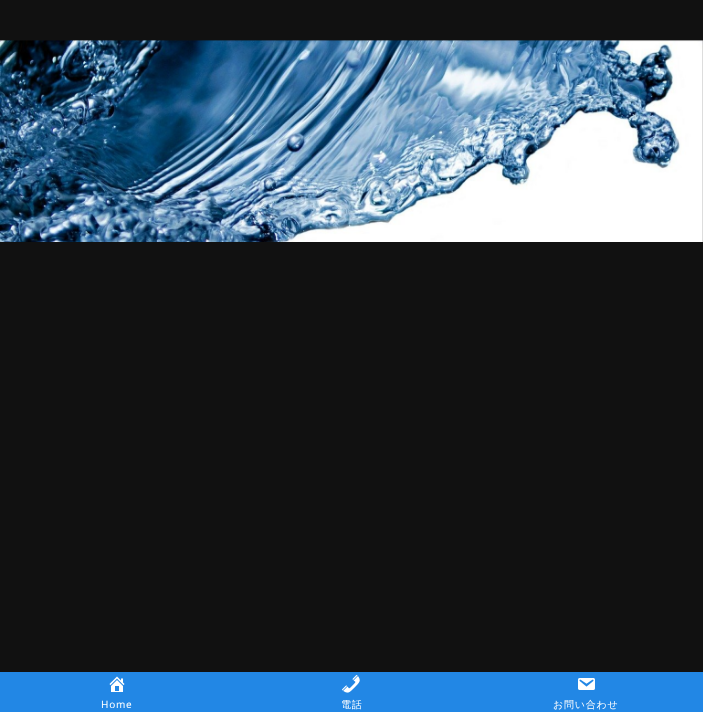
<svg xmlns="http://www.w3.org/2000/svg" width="703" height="712">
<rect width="100%" height="100%" fill="#111"/>
<image x="0" y="40" width="703" height="202" href="media/1.png"/>
<rect y="672" width="703" height="40" fill="#2287e5"/>
<image x="109" y="676" width="16" height="16" href="media/2.png"/>
<text x="101" y="708" style="font-family:Noto Sans;font-size:10px;letter-spacing:0.75px;fill:#fff">Home</text>
<image x="342" y="674" width="18" height="19" href="media/3.png"/>
<text x="341" y="708" style="font-family:WenQuanYi Zen Hei;font-size:10px;font-weight:500;letter-spacing:0.75px;fill:#fff">電話</text>
<image x="578" y="678" width="17" height="12" href="media/4.png"/>
<text x="553" y="708" style="font-family:WenQuanYi Zen Hei;font-size:10px;font-weight:500;letter-spacing:0.75px;fill:#fff">お問い合わせ</text>
</svg>
